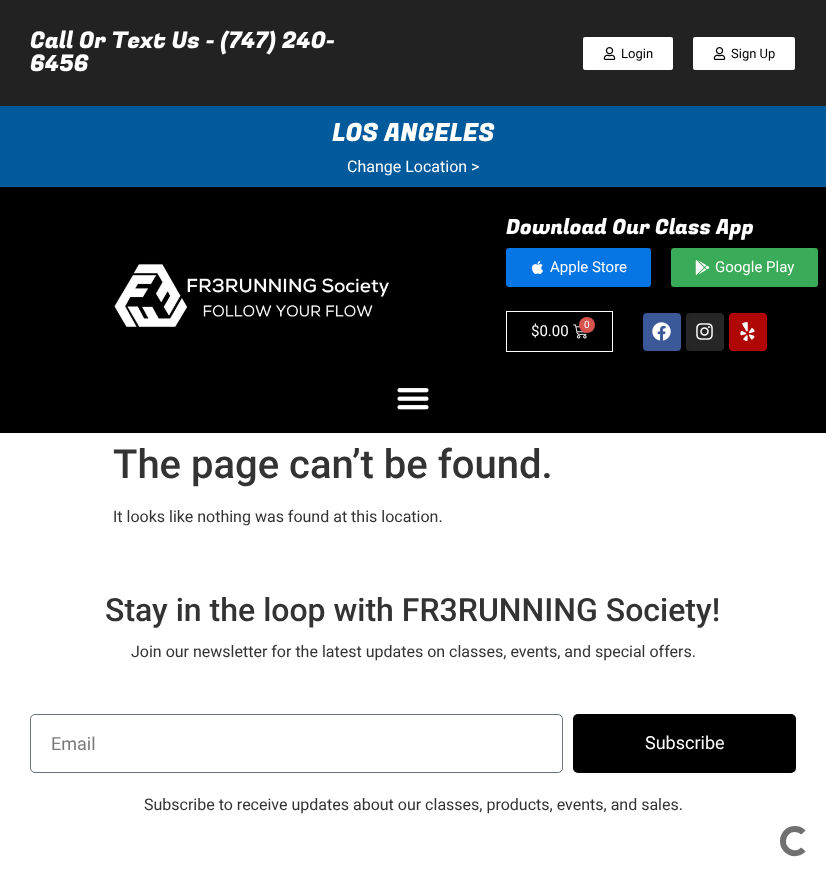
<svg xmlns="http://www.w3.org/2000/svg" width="826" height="872">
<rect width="100%" height="100%" fill="#fff"/>
<rect width="826" height="106" fill="#222"/>
<text x="30" y="48" style="font-family:Fugaz One;font-size:23px;fill:#fff">Call Or Text Us - (747) 240-</text>
<text x="30" y="71" style="font-family:Fugaz One;font-size:23px;fill:#fff">6456</text>
<rect x="583" y="37" width="90" height="33" rx="2" fill="#fff"/>
<image x="603" y="47" width="13" height="13" href="media/1.png"/>
<text x="621" y="58" style="font-family:Roboto;font-size:13px;fill:#000">Login</text>
<rect x="693" y="37" width="102" height="33" rx="2" fill="#fff"/>
<image x="713" y="47" width="13" height="13" href="media/1.png"/>
<text x="731" y="58" style="font-family:Roboto;font-size:13px;fill:#000">Sign Up</text>
<rect y="106" width="826" height="81" fill="#005a9c"/>
<text x="332" y="141" style="font-family:Fugaz One;font-size:25px;fill:#fff">LOS ANGELES</text>
<text x="347" y="172" style="font-family:Roboto;font-size:16px;fill:#fff">Change Location &gt;</text>
<rect y="187" width="826" height="246" fill="#000"/>
<image x="397" y="388" width="32" height="22" href="media/2.png"/>
<text x="506" y="234" style="font-family:Fugaz One;font-size:21px;fill:#fff">Download Our Class App</text>
<rect x="506" y="248" width="145" height="39" rx="3" fill="#0875e4"/>
<image x="532" y="261" width="11" height="13" href="media/3.png"/>
<text x="550" y="272" style="font-family:Roboto;font-size:15px;fill:#fff">Apple Store</text>
<rect x="671" y="248" width="147" height="39" rx="3" fill="#3aab58"/>
<image x="695" y="260" width="15" height="15" href="media/4.png"/>
<text x="715" y="272" style="font-family:Roboto;font-size:15px;fill:#fff">Google Play</text>
<rect x="506.5" y="311.5" width="106" height="40" fill="none" stroke="#fff"/>
<text x="531" y="336" style="font-family:Roboto;font-size:15px;fill:#fff">$0.00</text>
<image x="573" y="324" width="14" height="15" href="media/5.png"/>
<circle cx="587" cy="325" r="8" fill="#d9534f"/>
<text x="584" y="328" style="font-family:Roboto;font-size:10px;fill:#fff">0</text>
<rect x="643" y="313" width="38" height="38" rx="4" fill="#3b5998"/>
<image x="652" y="322" width="19" height="19" href="media/6.png"/>
<rect x="686" y="313" width="38" height="38" rx="4" fill="#262626"/>
<image x="696" y="323" width="17" height="17" href="media/7.png"/>
<rect x="729" y="313" width="38" height="38" rx="4" fill="#af0606"/>
<image x="740" y="322" width="15" height="19" href="media/8.png"/>
<image x="114" y="263" width="276" height="65" href="media/9.png"/>
<path d="M803.5 849.5c-3 3-7 4-11 3.5c-14-3-12-24 2.5-24c3 0 6.5 1.5 8.5 3.5" fill="none" stroke="#707070" stroke-width="6"/>
<text x="113" y="478" style="font-family:Roboto;font-size:40px;font-weight:500;fill:#333">The page can’t be found.</text>
<text x="113" y="522" style="font-family:Roboto;font-size:16px;fill:#333">It looks like nothing was found at this location.</text>
<text x="105" y="621" style="font-family:Roboto;font-size:32px;font-weight:500;fill:#333">Stay in the loop with FR3RUNNING Society!</text>
<text x="131" y="657" style="font-family:Roboto;font-size:16px;fill:#333">Join our newsletter for the latest updates on classes, events, and special offers.</text>
<rect x="30.5" y="714.5" width="532" height="58" rx="4.5" fill="none" stroke="#69727d"/>
<text x="51" y="750" style="font-family:Roboto;font-size:18px;fill:#797a7c">Email</text>
<rect x="573" y="714" width="223" height="59" rx="5" fill="#000"/>
<text x="645" y="749" style="font-family:Roboto;font-size:18px;fill:#fff">Subscribe</text>
<text x="144" y="810" style="font-family:Roboto;font-size:16px;fill:#333">Subscribe to receive updates about our classes, products, events, and sales.</text>
</svg>
